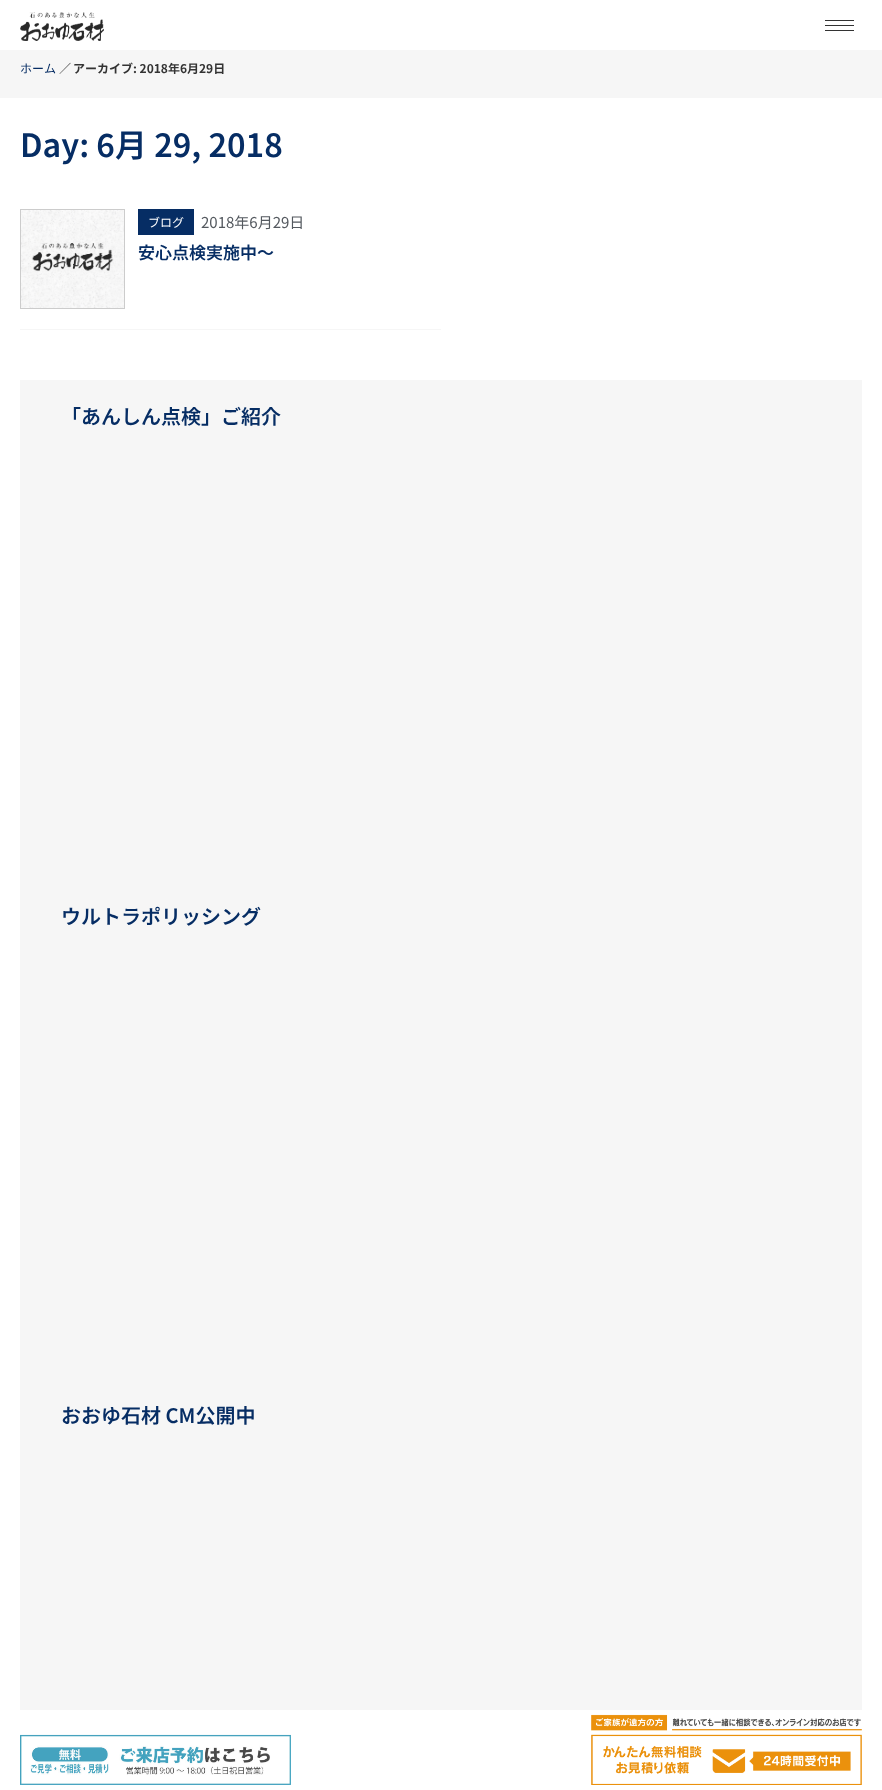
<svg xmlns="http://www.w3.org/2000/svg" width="882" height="1790">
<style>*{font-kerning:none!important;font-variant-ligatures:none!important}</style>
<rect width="100%" height="100%" fill="#fff"/>
<image x="20" y="12" width="84" height="29" href="media/1.png"/>
<rect x="825" y="20" width="29" height="1" fill="#333"/>
<rect x="825" y="25" width="29" height="1" fill="#333"/>
<rect x="825" y="30" width="29" height="1" fill="#333"/>
<rect y="50" width="882" height="48" fill="#f6f6f6"/>
<text x="20" y="73" style="font-family:Noto Sans JP;font-size:12px;fill:#062d64">ホーム</text>
<text x="59" y="73" style="font-family:Noto Sans JP;font-size:12px;fill:#333">／</text>
<text x="73" y="73" style="font-family:Noto Sans JP;font-size:12px;font-weight:bold;fill:#333">アーカイブ: 2018年6月29日</text>
<text x="20" y="157" style="font-family:Noto Sans JP;font-size:32px;font-weight:600;fill:#062d64">Day: 6月 29, 2018</text>
<rect x="20" y="329" width="421" height="1" fill="#f6f6f6"/>
<image x="21" y="210" width="103" height="98" href="media/2.png"/>
<rect x="20.5" y="209.5" width="104" height="99" fill="none" stroke="#ccc"/>
<rect x="138" y="209" width="56" height="26" fill="#062d64"/>
<text x="148" y="227" style="font-family:Noto Sans JP;font-size:12px;fill:#fff">ブログ</text>
<text x="201" y="228" style="font-family:Noto Sans JP;font-size:15px;fill:#54595f">2018年6月29日</text>
<text x="138" y="259" style="font-family:Noto Sans JP;font-size:17px;font-weight:600;fill:#062d64">安心点検実施中～</text>
<rect x="20" y="380" width="842" height="1330" fill="#f6f6f6"/>
<text x="61" y="424" style="font-family:Noto Sans JP;font-size:20px;font-weight:600;fill:#062d64">「あんしん点検」ご紹介</text>
<text x="61" y="924" style="font-family:Noto Sans JP;font-size:20px;font-weight:600;fill:#062d64">ウルトラポリッシング</text>
<text x="61" y="1423" style="font-family:Noto Sans JP;font-size:20px;font-weight:600;fill:#062d64">おおゆ石材 CM公開中</text>
<image x="20" y="1734" width="271" height="51" href="media/3.png"/>
<image x="591" y="1714" width="271" height="71" href="media/4.png"/>
</svg>
